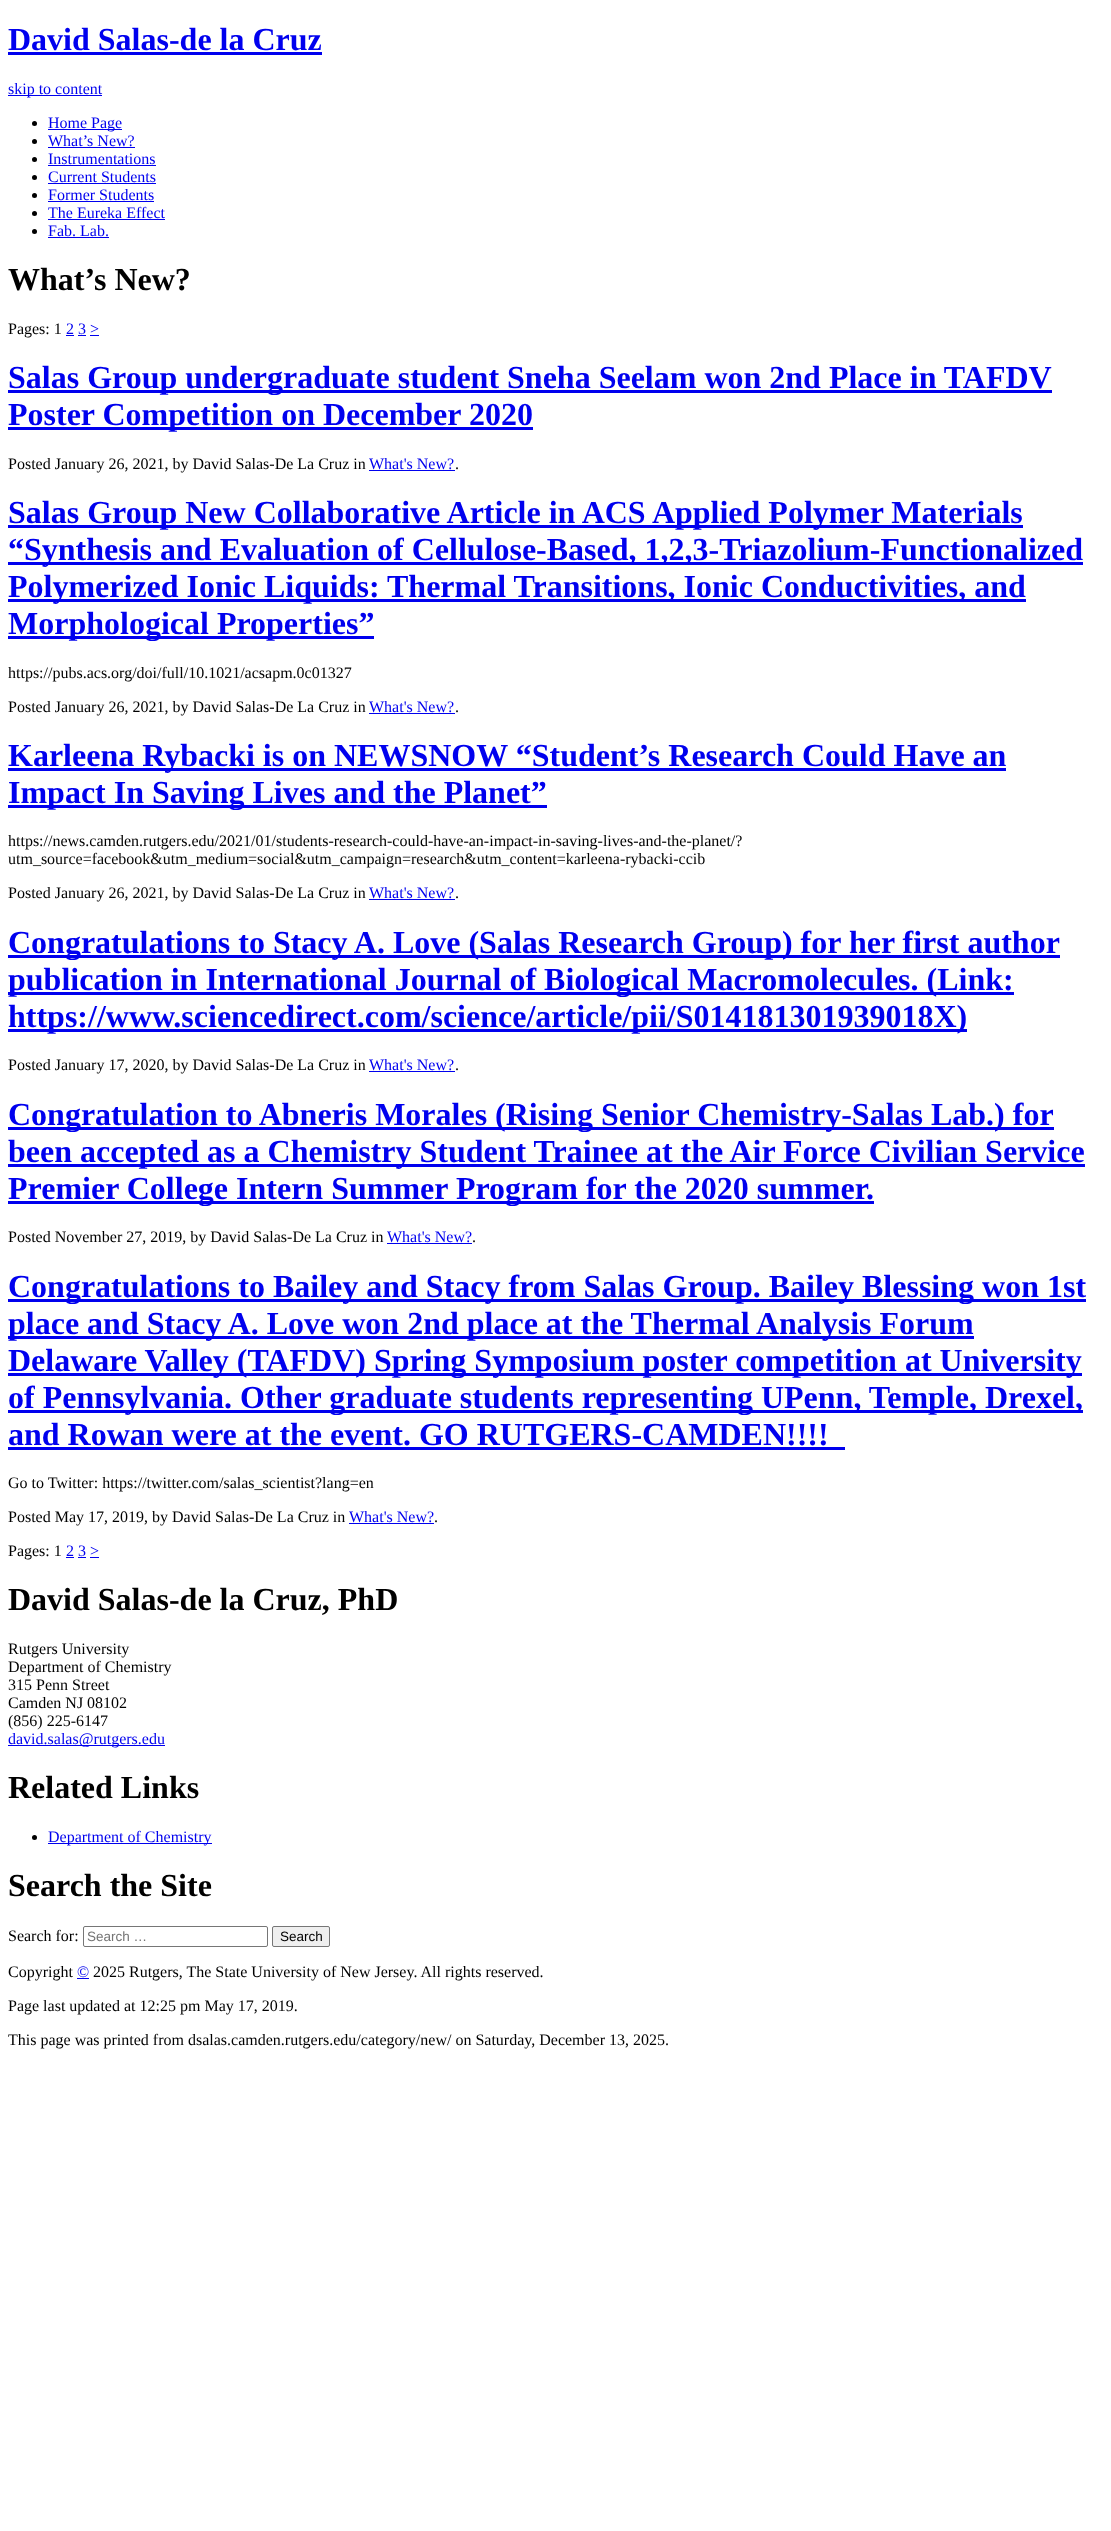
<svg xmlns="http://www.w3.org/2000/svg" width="1111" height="2531">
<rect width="100%" height="100%" fill="#fff"/>
<text x="8" y="50" style="font-family:Liberation Serif;font-size:32px;font-weight:bold;fill:#00e">David Salas-de la Cruz</text>
<rect x="8" y="52" width="314" height="3" fill="#00e"/>
<rect x="8" y="95" width="94" height="1" fill="#00e"/>
<text x="8" y="94" style="font-family:Liberation Serif;font-size:16px;fill:#00e">skip to content</text>
<circle cx="34.5" cy="123.5" r="2.5" fill="#000"/>
<rect x="48" y="129" width="74" height="1" fill="#00e"/>
<text x="48" y="128" style="font-family:Liberation Serif;font-size:16px;fill:#00e">Home Page</text>
<circle cx="34.5" cy="141.5" r="2.5" fill="#000"/>
<text x="48" y="146" style="font-family:Liberation Serif;font-size:16px;fill:#00e">What’s New?</text>
<rect x="48" y="147" width="87" height="1" fill="#00e"/>
<circle cx="34.5" cy="159.5" r="2.5" fill="#000"/>
<text x="48" y="164" style="font-family:Liberation Serif;font-size:16px;fill:#00e">Instrumentations</text>
<rect x="48" y="165" width="108" height="1" fill="#00e"/>
<circle cx="34.5" cy="177.5" r="2.5" fill="#000"/>
<text x="48" y="182" style="font-family:Liberation Serif;font-size:16px;fill:#00e">Current Students</text>
<rect x="48" y="183" width="108" height="1" fill="#00e"/>
<circle cx="34.5" cy="195.5" r="2.5" fill="#000"/>
<text x="48" y="200" style="font-family:Liberation Serif;font-size:16px;fill:#00e">Former Students</text>
<rect x="48" y="201" width="106" height="1" fill="#00e"/>
<circle cx="34.5" cy="213.5" r="2.5" fill="#000"/>
<text x="48" y="218" style="font-family:Liberation Serif;font-size:16px;fill:#00e">The Eureka Effect</text>
<rect x="48" y="219" width="117" height="1" fill="#00e"/>
<circle cx="34.5" cy="231.5" r="2.5" fill="#000"/>
<text x="48" y="236" style="font-family:Liberation Serif;font-size:16px;fill:#00e">Fab. Lab.</text>
<rect x="48" y="237" width="61" height="1" fill="#00e"/>
<text x="8" y="290" style="font-family:Liberation Serif;font-size:32px;font-weight:bold;fill:#000">What’s New?</text>
<text x="8" y="334" style="font-family:Liberation Serif;font-size:16px;fill:#000">Pages: 1</text>
<text x="66" y="334" style="font-family:Liberation Serif;font-size:16px;fill:#00e">2 3 &gt;</text>
<rect x="66" y="335" width="8" height="1" fill="#00e"/>
<rect x="78" y="335" width="8" height="1" fill="#00e"/>
<rect x="90" y="335" width="9" height="1" fill="#00e"/>
<rect x="8" y="390" width="1044" height="3" fill="#00e"/>
<text x="8" y="388" style="font-family:Liberation Serif;font-size:32px;font-weight:bold;fill:#00e">Salas Group undergraduate student Sneha Seelam won 2nd Place in TAFDV</text>
<rect x="8" y="427" width="525" height="3" fill="#00e"/>
<text x="8" y="425" style="font-family:Liberation Serif;font-size:32px;font-weight:bold;fill:#00e">Poster Competition on December 2020</text>
<text x="8" y="469" style="font-family:Liberation Serif;font-size:16px;fill:#000">Posted January 26, 2021, by David Salas-De La Cruz in</text>
<text x="369" y="469" style="font-family:Liberation Serif;font-size:16px;fill:#00e">What's New?</text>
<rect x="369" y="470" width="86" height="1" fill="#00e"/>
<text x="455" y="469" style="font-family:Liberation Serif;font-size:16px;fill:#000">.</text>
<rect x="8" y="525" width="1015" height="3" fill="#00e"/>
<text x="8" y="523" style="font-family:Liberation Serif;font-size:32px;font-weight:bold;fill:#00e">Salas Group New Collaborative Article in ACS Applied Polymer Materials</text>
<rect x="8" y="562" width="1075" height="3" fill="#00e"/>
<text x="8" y="560" style="font-family:Liberation Serif;font-size:32px;font-weight:bold;fill:#00e">“Synthesis and Evaluation of Cellulose-Based, 1,2,3-Triazolium-Functionalized</text>
<rect x="8" y="599" width="1018" height="3" fill="#00e"/>
<text x="8" y="597" style="font-family:Liberation Serif;font-size:32px;font-weight:bold;fill:#00e">Polymerized Ionic Liquids: Thermal Transitions, Ionic Conductivities, and</text>
<rect x="8" y="636" width="366" height="3" fill="#00e"/>
<text x="8" y="634" style="font-family:Liberation Serif;font-size:32px;font-weight:bold;fill:#00e">Morphological Properties”</text>
<text x="8" y="678" style="font-family:Liberation Serif;font-size:16px;fill:#000">https://pubs.acs.org/doi/full/10.1021/acsapm.0c01327</text>
<text x="8" y="712" style="font-family:Liberation Serif;font-size:16px;fill:#000">Posted January 26, 2021, by David Salas-De La Cruz in</text>
<text x="369" y="712" style="font-family:Liberation Serif;font-size:16px;fill:#00e">What's New?</text>
<rect x="369" y="713" width="86" height="1" fill="#00e"/>
<text x="455" y="712" style="font-family:Liberation Serif;font-size:16px;fill:#000">.</text>
<rect x="8" y="768" width="998" height="3" fill="#00e"/>
<text x="8" y="766" style="font-family:Liberation Serif;font-size:32px;font-weight:bold;fill:#00e">Karleena Rybacki is on NEWSNOW “Student’s Research Could Have an</text>
<rect x="8" y="805" width="539" height="3" fill="#00e"/>
<text x="8" y="803" style="font-family:Liberation Serif;font-size:32px;font-weight:bold;fill:#00e">Impact In Saving Lives and the Planet”</text>
<text x="8" y="846" style="font-family:Liberation Serif;font-size:16px;fill:#000">https://news.camden.rutgers.edu/2021/01/students-research-could-have-an-impact-in-saving-lives-and-the-planet/?</text>
<text x="8" y="864" style="font-family:Liberation Serif;font-size:16px;fill:#000">utm_source=facebook&amp;utm_medium=social&amp;utm_campaign=research&amp;utm_content=karleena-rybacki-ccib</text>
<text x="8" y="898" style="font-family:Liberation Serif;font-size:16px;fill:#000">Posted January 26, 2021, by David Salas-De La Cruz in</text>
<text x="369" y="898" style="font-family:Liberation Serif;font-size:16px;fill:#00e">What's New?</text>
<rect x="369" y="899" width="86" height="1" fill="#00e"/>
<text x="455" y="898" style="font-family:Liberation Serif;font-size:16px;fill:#000">.</text>
<rect x="8" y="955" width="1052" height="3" fill="#00e"/>
<text x="8" y="953" style="font-family:Liberation Serif;font-size:32px;font-weight:bold;fill:#00e">Congratulations to Stacy A. Love (Salas Research Group) for her first author</text>
<rect x="8" y="992" width="1006" height="3" fill="#00e"/>
<text x="8" y="990" style="font-family:Liberation Serif;font-size:32px;font-weight:bold;fill:#00e">publication in International Journal of Biological Macromolecules. (Link:</text>
<rect x="8" y="1029" width="959" height="3" fill="#00e"/>
<text x="8" y="1027" style="font-family:Liberation Serif;font-size:32px;font-weight:bold;fill:#00e">https://www.sciencedirect.com/science/article/pii/S014181301939018X)</text>
<text x="8" y="1070" style="font-family:Liberation Serif;font-size:16px;fill:#000">Posted January 17, 2020, by David Salas-De La Cruz in</text>
<text x="369" y="1070" style="font-family:Liberation Serif;font-size:16px;fill:#00e">What's New?</text>
<rect x="369" y="1071" width="86" height="1" fill="#00e"/>
<text x="455" y="1070" style="font-family:Liberation Serif;font-size:16px;fill:#000">.</text>
<rect x="8" y="1127" width="1046" height="3" fill="#00e"/>
<text x="8" y="1125" style="font-family:Liberation Serif;font-size:32px;font-weight:bold;fill:#00e">Congratulation to Abneris Morales (Rising Senior Chemistry-Salas Lab.) for</text>
<rect x="8" y="1164" width="1077" height="3" fill="#00e"/>
<text x="8" y="1162" style="font-family:Liberation Serif;font-size:32px;font-weight:bold;fill:#00e">been accepted as a Chemistry Student Trainee at the Air Force Civilian Service</text>
<rect x="8" y="1201" width="866" height="3" fill="#00e"/>
<text x="8" y="1199" style="font-family:Liberation Serif;font-size:32px;font-weight:bold;fill:#00e">Premier College Intern Summer Program for the 2020 summer.</text>
<text x="8" y="1242" style="font-family:Liberation Serif;font-size:16px;fill:#000">Posted November 27, 2019, by David Salas-De La Cruz in</text>
<text x="387" y="1242" style="font-family:Liberation Serif;font-size:16px;fill:#00e">What's New?</text>
<rect x="387" y="1243" width="85" height="1" fill="#00e"/>
<text x="472" y="1242" style="font-family:Liberation Serif;font-size:16px;fill:#000">.</text>
<rect x="8" y="1299" width="1078" height="3" fill="#00e"/>
<text x="8" y="1297" style="font-family:Liberation Serif;font-size:32px;font-weight:bold;fill:#00e">Congratulations to Bailey and Stacy from Salas Group. Bailey Blessing won 1st</text>
<rect x="8" y="1336" width="966" height="3" fill="#00e"/>
<text x="8" y="1334" style="font-family:Liberation Serif;font-size:32px;font-weight:bold;fill:#00e">place and Stacy A. Love won 2nd place at the Thermal Analysis Forum</text>
<rect x="8" y="1373" width="1074" height="3" fill="#00e"/>
<text x="8" y="1371" style="font-family:Liberation Serif;font-size:32px;font-weight:bold;fill:#00e">Delaware Valley (TAFDV) Spring Symposium poster competition at University</text>
<rect x="8" y="1410" width="1075" height="3" fill="#00e"/>
<text x="8" y="1408" style="font-family:Liberation Serif;font-size:32px;font-weight:bold;fill:#00e">of Pennsylvania. Other graduate students representing UPenn, Temple, Drexel,</text>
<text x="8" y="1445" style="font-family:Liberation Serif;font-size:32px;font-weight:bold;fill:#00e">and Rowan were at the event. GO RUTGERS-CAMDEN!!!!</text>
<rect x="8" y="1447" width="837" height="3" fill="#00e"/>
<text x="8" y="1488" style="font-family:Liberation Serif;font-size:16px;fill:#000">Go to Twitter: https://twitter.com/salas_scientist?lang=en</text>
<text x="8" y="1522" style="font-family:Liberation Serif;font-size:16px;fill:#000">Posted May 17, 2019, by David Salas-De La Cruz in</text>
<text x="349" y="1522" style="font-family:Liberation Serif;font-size:16px;fill:#00e">What's New?</text>
<rect x="349" y="1523" width="85" height="1" fill="#00e"/>
<text x="434" y="1522" style="font-family:Liberation Serif;font-size:16px;fill:#000">.</text>
<text x="8" y="1556" style="font-family:Liberation Serif;font-size:16px;fill:#000">Pages: 1</text>
<text x="66" y="1556" style="font-family:Liberation Serif;font-size:16px;fill:#00e">2 3 &gt;</text>
<rect x="66" y="1557" width="8" height="1" fill="#00e"/>
<rect x="78" y="1557" width="8" height="1" fill="#00e"/>
<rect x="90" y="1557" width="9" height="1" fill="#00e"/>
<text x="8" y="1610" style="font-family:Liberation Serif;font-size:32px;font-weight:bold;fill:#000">David Salas-de la Cruz, PhD</text>
<text x="8" y="1654" style="font-family:Liberation Serif;font-size:16px;fill:#000">Rutgers University</text>
<text x="8" y="1672" style="font-family:Liberation Serif;font-size:16px;fill:#000">Department of Chemistry</text>
<text x="8" y="1690" style="font-family:Liberation Serif;font-size:16px;fill:#000">315 Penn Street</text>
<text x="8" y="1708" style="font-family:Liberation Serif;font-size:16px;fill:#000">Camden NJ 08102</text>
<text x="8" y="1726" style="font-family:Liberation Serif;font-size:16px;fill:#000">(856) 225-6147</text>
<rect x="8" y="1745" width="157" height="1" fill="#00e"/>
<text x="8" y="1744" style="font-family:Liberation Serif;font-size:16px;fill:#00e">david.salas@rutgers.edu</text>
<text x="8" y="1798" style="font-family:Liberation Serif;font-size:32px;font-weight:bold;fill:#000">Related Links</text>
<circle cx="34.5" cy="1837.5" r="2.5" fill="#000"/>
<rect x="48" y="1843" width="164" height="1" fill="#00e"/>
<text x="48" y="1842" style="font-family:Liberation Serif;font-size:16px;fill:#00e">Department of Chemistry</text>
<text x="8" y="1896" style="font-family:Liberation Serif;font-size:32px;font-weight:bold;fill:#000">Search the Site</text>
<text x="8" y="1941" style="font-family:Liberation Serif;font-size:16px;fill:#000">Search for:</text>
<rect x="83.5" y="1926.5" width="184" height="20" rx="1.5" fill="none" stroke="#767676"/>
<text x="87" y="1941" style="font-family:Liberation Sans;font-size:13.5px;fill:#757575">Search …</text>
<rect x="272.5" y="1926.5" width="57" height="20" rx="1.5" fill="#efefef" stroke="#767676"/>
<text x="280" y="1941" style="font-family:Liberation Sans;font-size:13.5px;fill:#000">Search</text>
<text x="8" y="1977" style="font-family:Liberation Serif;font-size:16px;fill:#000">Copyright</text>
<text x="77" y="1977" style="font-family:Liberation Serif;font-size:16px;fill:#00e">©</text>
<rect x="77" y="1978" width="12" height="1" fill="#00e"/>
<text x="93" y="1977" style="font-family:Liberation Serif;font-size:16px;fill:#000">2025 Rutgers, The State University of New Jersey. All rights reserved.</text>
<text x="8" y="2011" style="font-family:Liberation Serif;font-size:16px;fill:#000">Page last updated at 12:25 pm May 17, 2019.</text>
<text x="8" y="2045" style="font-family:Liberation Serif;font-size:16px;fill:#000">This page was printed from dsalas.camden.rutgers.edu/category/new/ on Saturday, December 13, 2025.</text>
</svg>
